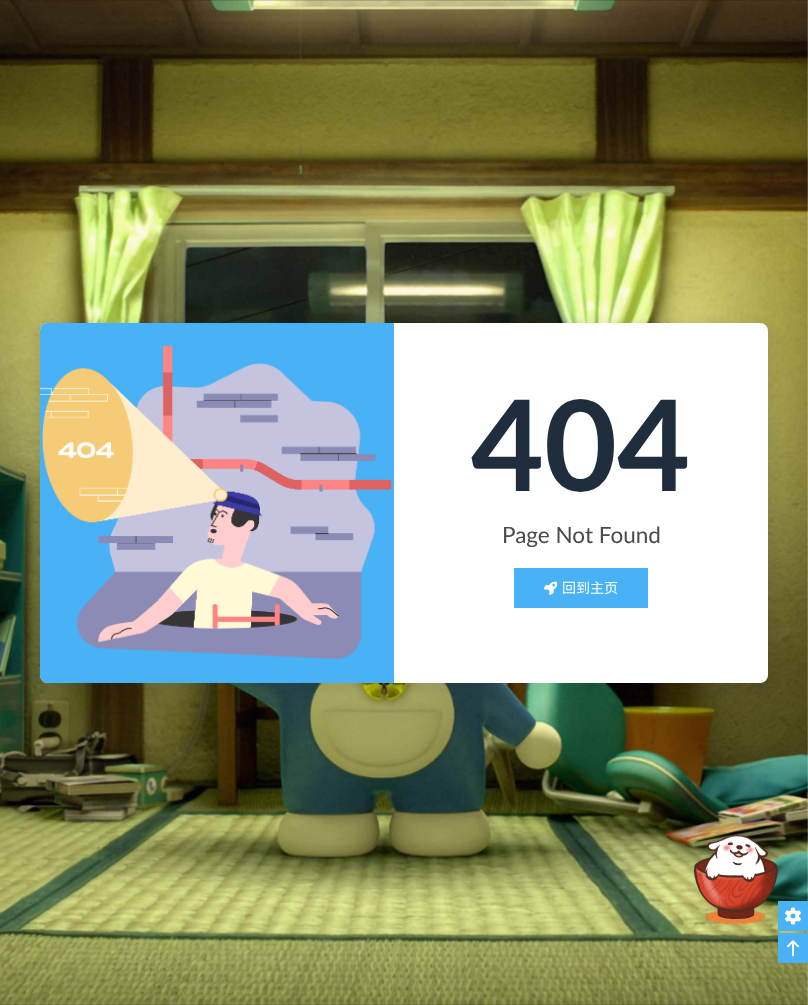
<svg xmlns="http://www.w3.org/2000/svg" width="808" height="1005">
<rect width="100%" height="100%" fill="#fff"/>
<image x="0" y="0" width="808" height="1005" href="media/1.png"/>
<rect x="34" y="320" width="740" height="372" rx="14" fill="#07111b0f" filter="blur(4px)"/>
<rect x="40" y="323" width="728" height="360" rx="8" fill="#fff"/>
<path d="M48 323h346v360h-346c-4.5 0-8-3.5-8-8v-344c0-4.5 3.5-8 8-8z" fill="#49b1f5"/>
<image x="40" y="345" width="352" height="315" href="media/2.png"/>
<text x="471" y="491" style="font-family:Lato;font-size:126px;font-weight:bold;fill:#1f2d3d">404</text>
<text x="502" y="543" style="font-family:Lato;font-size:22.5px;fill:#4c4948">Page Not Found</text>
<rect x="514" y="568" width="134" height="40" fill="#49b1f5"/>
<image x="543" y="581" width="15" height="14" href="media/3.png"/>
<text x="562" y="593" style="font-family:Noto Sans CJK SC;font-size:14px;fill:#fff">回到主页</text>
<image x="694" y="835" width="84" height="90" href="media/4.png"/>
<rect x="778" y="901" width="30" height="30" fill="#49b1f5"/>
<image x="785" y="907" width="16" height="18" href="media/5.png"/>
<rect x="778" y="933" width="30" height="30" fill="#49b1f5"/>
<image x="787" y="940" width="12" height="17" href="media/6.png"/>
</svg>
